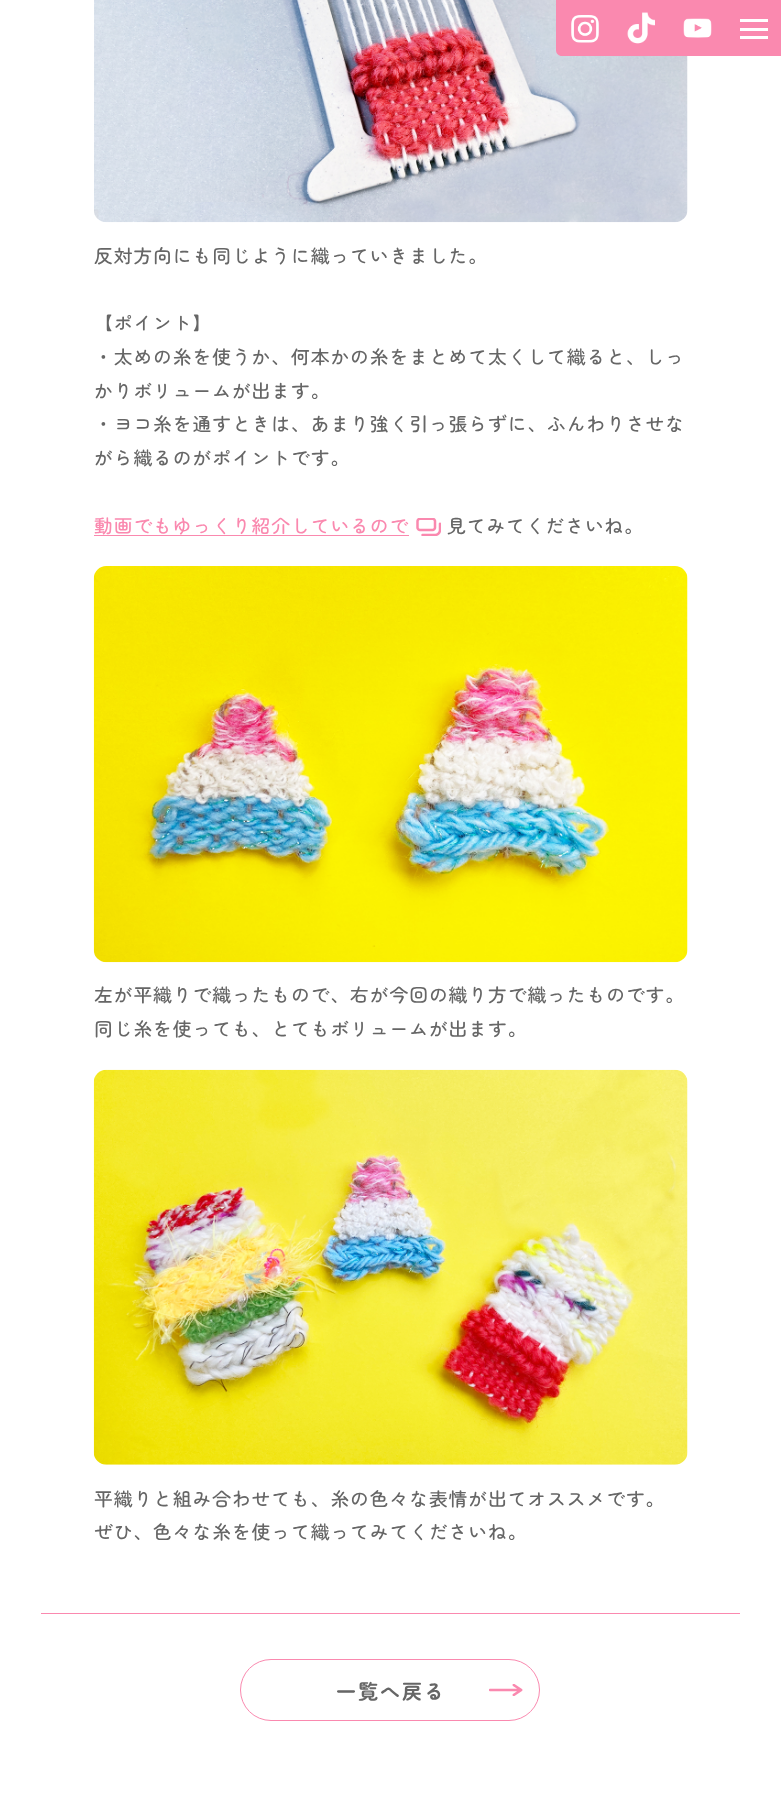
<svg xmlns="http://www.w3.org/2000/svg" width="781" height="1805">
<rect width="100%" height="100%" fill="#fff"/>
<image x="94" y="0" width="594" height="223" href="media/4.png"/>
<path d="M556 0h169v56h-163c-3.5 0-6-2.5-6-6z" fill="#fa89af"/>
<image x="571" y="15" width="28" height="28" href="media/1.png"/>
<image x="627" y="12" width="28" height="32" href="media/2.png"/>
<image x="683" y="18" width="29" height="20" href="media/3.png"/>
<rect x="725" width="56" height="56" fill="#fa89af"/>
<rect x="740" y="19" width="28" height="3" fill="#fff"/>
<rect x="740" y="28" width="28" height="3" fill="#fff"/>
<rect x="740" y="36" width="28" height="3" fill="#fff"/>
<text x="94" y="263" style="font-family:Zen Maru Gothic;font-size:18.75px;font-weight:500;letter-spacing:0.95px;fill:#666">反対方向にも同じように織っていきました。</text>
<text x="94" y="330" style="font-family:Zen Maru Gothic;font-size:18.75px;font-weight:500;letter-spacing:0.95px;fill:#666">【ポイント】</text>
<text x="94" y="364" style="font-family:Zen Maru Gothic;font-size:18.75px;font-weight:500;letter-spacing:0.95px;fill:#666">・太めの糸を使うか、何本かの糸をまとめて太くして織ると、しっ</text>
<text x="94" y="398" style="font-family:Zen Maru Gothic;font-size:18.75px;font-weight:500;letter-spacing:0.95px;fill:#666">かりボリュームが出ます。</text>
<text x="94" y="431" style="font-family:Zen Maru Gothic;font-size:18.75px;font-weight:500;letter-spacing:0.95px;fill:#666">・ヨコ糸を通すときは、あまり強く引っ張らずに、ふんわりさせな</text>
<text x="94" y="465" style="font-family:Zen Maru Gothic;font-size:18.75px;font-weight:500;letter-spacing:0.95px;fill:#666">がら織るのがポイントです。</text>
<text x="94" y="533" style="font-family:Zen Maru Gothic;font-size:18.75px;font-weight:500;letter-spacing:0.95px;fill:#fa89af">動画でもゆっくり紹介しているので</text>
<rect x="94" y="535" width="315" height="1" fill="#fa89af"/>
<image x="416" y="518" width="25" height="18" href="media/5.png"/>
<text x="447" y="533" style="font-family:Zen Maru Gothic;font-size:18.75px;font-weight:500;letter-spacing:0.95px;fill:#666">見てみてくださいね。</text>
<image x="93" y="566" width="595" height="397" href="media/6.png"/>
<text x="94" y="1002" style="font-family:Zen Maru Gothic;font-size:18.75px;font-weight:500;letter-spacing:0.95px;fill:#666">左が平織りで織ったもので、右が今回の織り方で織ったものです。</text>
<text x="94" y="1036" style="font-family:Zen Maru Gothic;font-size:18.75px;font-weight:500;letter-spacing:0.95px;fill:#666">同じ糸を使っても、とてもボリュームが出ます。</text>
<image x="93" y="1069" width="595" height="396" href="media/7.png"/>
<text x="94" y="1506" style="font-family:Zen Maru Gothic;font-size:18.75px;font-weight:500;letter-spacing:0.95px;fill:#666">平織りと組み合わせても、糸の色々な表情が出てオススメです。</text>
<text x="94" y="1539" style="font-family:Zen Maru Gothic;font-size:18.75px;font-weight:500;letter-spacing:0.95px;fill:#666">ぜひ、色々な糸を使って織ってみてくださいね。</text>
<rect x="41" y="1613" width="699" height="1" fill="#fa89af"/>
<rect x="240.5" y="1659.5" width="299" height="61" rx="30.5" fill="none" stroke="#fa89af"/>
<text x="336" y="1699" style="font-family:Zen Maru Gothic;font-size:20px;font-weight:bold;letter-spacing:2px;fill:#666">一覧へ戻る</text>
<image x="489" y="1684" width="34" height="12" href="media/8.png"/>
</svg>
